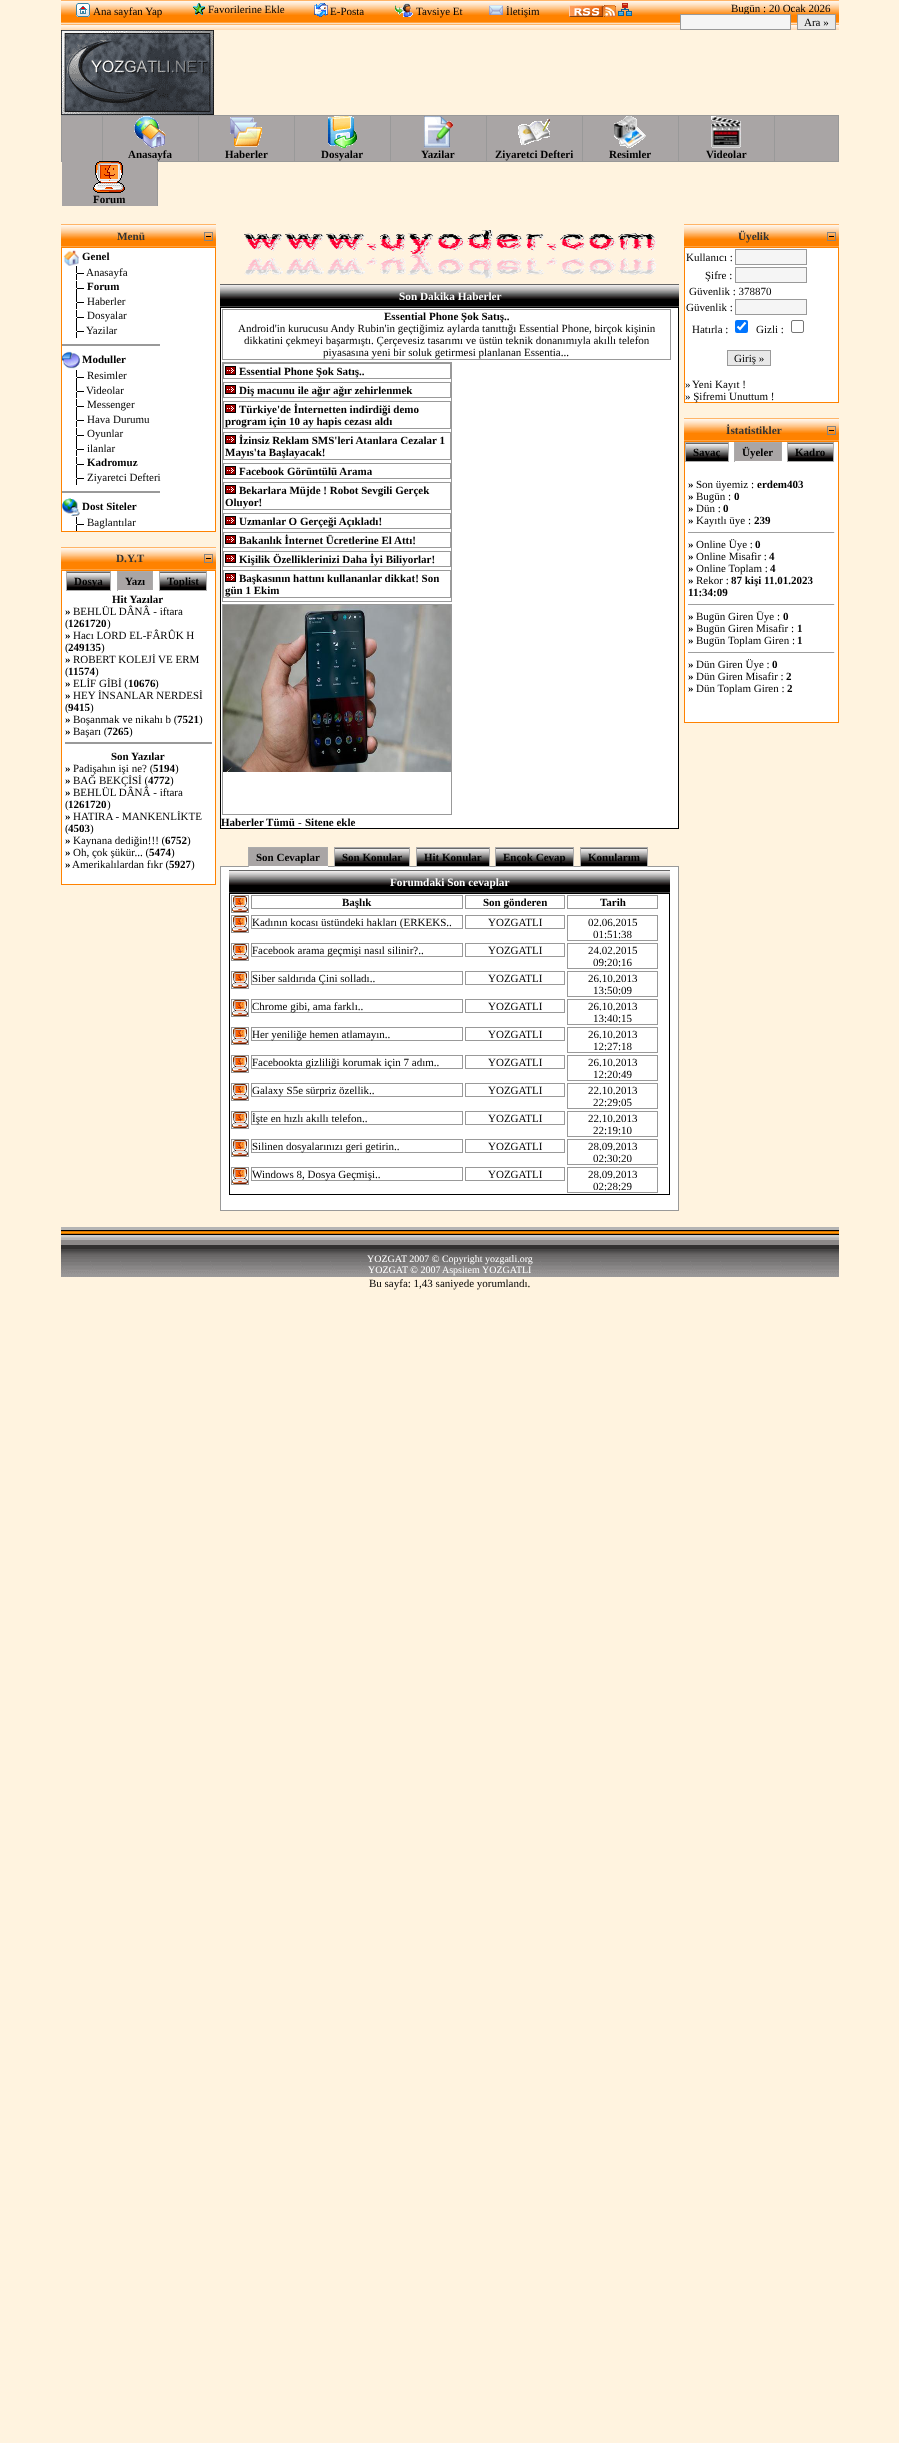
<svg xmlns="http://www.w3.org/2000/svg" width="899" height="2443">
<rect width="100%" height="100%" fill="#fff3df"/>
<image x="61" y="0" width="778" height="30" href="media/1.png"/>
<image x="76" y="3" width="14" height="14" href="media/2.png"/>
<text x="93" y="15" style="font-family:Liberation Serif;font-size:11px;fill:#000">Ana sayfan Yap</text>
<image x="193" y="3" width="12" height="12" href="media/3.png"/>
<text x="208" y="13" style="font-family:Liberation Serif;font-size:11px;fill:#000">Favorilerine Ekle</text>
<image x="314" y="3" width="14" height="14" href="media/4.png"/>
<text x="330" y="15" style="font-family:Liberation Serif;font-size:11px;fill:#000">E-Posta</text>
<image x="395" y="3" width="18" height="14" href="media/5.png"/>
<text x="416" y="15" style="font-family:Liberation Serif;font-size:11px;fill:#000">Tavsiye Et</text>
<image x="489" y="5" width="14" height="10" href="media/6.png"/>
<text x="506" y="15" style="font-family:Liberation Serif;font-size:11px;fill:#000">İletişim</text>
<image x="569" y="5" width="47" height="12" href="media/7.png"/>
<image x="618" y="3" width="14" height="13" href="media/8.png"/>
<text x="731" y="12" style="font-family:Liberation Serif;font-size:11px;fill:#000">Bugün : 20 Ocak 2026</text>
<rect x="680.5" y="14.5" width="110" height="15" fill="#f5f5f5" stroke="#999"/>
<rect x="797.5" y="14.5" width="38" height="15" fill="#e8e8e8" stroke="#999"/>
<text x="804" y="26" style="font-family:Liberation Serif;font-size:11px;fill:#000">Ara »</text>
<image x="61" y="30" width="153" height="85" href="media/9.png"/>
<rect x="61.5" y="115.5" width="777" height="46" fill="#a9a5a5" stroke="#999"/>
<rect x="102" y="116" width="1" height="45" fill="#999"/>
<rect x="198" y="116" width="1" height="45" fill="#999"/>
<image x="134" y="116" width="32" height="32" href="media/10.png"/>
<text x="128" y="158" style="font-family:Liberation Serif;font-size:11px;font-weight:bold;fill:#000">Anasayfa</text>
<rect x="294" y="116" width="1" height="45" fill="#999"/>
<image x="230" y="117" width="32" height="30" href="media/11.png"/>
<text x="225" y="158" style="font-family:Liberation Serif;font-size:11px;font-weight:bold;fill:#000">Haberler</text>
<rect x="390" y="116" width="1" height="45" fill="#999"/>
<image x="328" y="116" width="29" height="32" href="media/12.png"/>
<text x="321" y="158" style="font-family:Liberation Serif;font-size:11px;font-weight:bold;fill:#000">Dosyalar</text>
<rect x="486" y="116" width="1" height="45" fill="#999"/>
<image x="424" y="116" width="29" height="32" href="media/13.png"/>
<text x="421" y="158" style="font-family:Liberation Serif;font-size:11px;font-weight:bold;fill:#000">Yazilar</text>
<rect x="582" y="116" width="1" height="45" fill="#999"/>
<image x="518" y="119" width="32" height="26" href="media/14.png"/>
<text x="495" y="158" style="font-family:Liberation Serif;font-size:11px;font-weight:bold;fill:#000">Ziyaretci Defteri</text>
<rect x="678" y="116" width="1" height="45" fill="#999"/>
<image x="614" y="116" width="32" height="32" href="media/15.png"/>
<text x="609" y="158" style="font-family:Liberation Serif;font-size:11px;font-weight:bold;fill:#000">Resimler</text>
<rect x="774" y="116" width="1" height="45" fill="#999"/>
<image x="711" y="116" width="30" height="32" href="media/16.png"/>
<text x="706" y="158" style="font-family:Liberation Serif;font-size:11px;font-weight:bold;fill:#000">Videolar</text>
<rect x="62" y="161" width="95" height="45" fill="#a9a5a5"/>
<rect x="157" y="161" width="1" height="45" fill="#999"/>
<image x="93" y="161" width="32" height="32" href="media/17.png"/>
<text x="93" y="203" style="font-family:Liberation Serif;font-size:11px;font-weight:bold;fill:#000">Forum</text>
<image x="61" y="224" width="140" height="23" href="media/18.png"/>
<text x="117" y="240" style="font-family:Liberation Serif;font-size:11.25px;font-weight:bold;fill:#333">Menü</text>
<image x="201" y="224" width="15" height="23" href="media/19.png"/>
<image x="204" y="232" width="9" height="9" href="media/20.png"/>
<rect x="61.5" y="247.5" width="154" height="284" fill="#fff" stroke="#ff8200"/>
<image x="63" y="250" width="16" height="16" href="media/21.png"/>
<text x="82" y="260" style="font-family:Liberation Serif;font-size:11px;font-weight:bold;fill:#000">Genel</text>
<image x="76" y="266" width="8" height="14" href="media/22.png"/>
<text x="86" y="276" style="font-family:Liberation Serif;font-size:11px;fill:#000">Anasayfa</text>
<image x="76" y="281" width="8" height="14" href="media/22.png"/>
<text x="87" y="290" style="font-family:Liberation Serif;font-size:11px;font-weight:bold;fill:#000">Forum</text>
<image x="76" y="295" width="8" height="14" href="media/22.png"/>
<text x="87" y="305" style="font-family:Liberation Serif;font-size:11px;fill:#000">Haberler</text>
<image x="76" y="310" width="8" height="14" href="media/22.png"/>
<text x="87" y="319" style="font-family:Liberation Serif;font-size:11px;fill:#000">Dosyalar</text>
<image x="76" y="324" width="8" height="14" href="media/22.png"/>
<text x="86" y="334" style="font-family:Liberation Serif;font-size:11px;fill:#000">Yazilar</text>
<rect x="62" y="344" width="98" height="2" fill="#999"/>
<image x="62" y="351" width="18" height="18" href="media/23.png"/>
<text x="82" y="363" style="font-family:Liberation Serif;font-size:11px;font-weight:bold;fill:#000">Moduller</text>
<image x="76" y="370" width="8" height="14" href="media/22.png"/>
<text x="87" y="379" style="font-family:Liberation Serif;font-size:11px;fill:#000">Resimler</text>
<image x="76" y="384" width="8" height="14" href="media/22.png"/>
<text x="86" y="394" style="font-family:Liberation Serif;font-size:11px;fill:#000">Videolar</text>
<image x="76" y="399" width="8" height="14" href="media/22.png"/>
<text x="87" y="408" style="font-family:Liberation Serif;font-size:11px;fill:#000">Messenger</text>
<image x="76" y="413" width="8" height="14" href="media/22.png"/>
<text x="87" y="423" style="font-family:Liberation Serif;font-size:11px;fill:#000">Hava Durumu</text>
<image x="76" y="428" width="8" height="14" href="media/22.png"/>
<text x="87" y="437" style="font-family:Liberation Serif;font-size:11px;fill:#000">Oyunlar</text>
<image x="76" y="442" width="8" height="14" href="media/22.png"/>
<text x="87" y="452" style="font-family:Liberation Serif;font-size:11px;fill:#000">ilanlar</text>
<image x="76" y="457" width="8" height="14" href="media/22.png"/>
<text x="87" y="466" style="font-family:Liberation Serif;font-size:11px;font-weight:bold;fill:#000">Kadromuz</text>
<image x="76" y="471" width="8" height="14" href="media/22.png"/>
<text x="87" y="481" style="font-family:Liberation Serif;font-size:11px;fill:#000">Ziyaretci Defteri</text>
<rect x="62" y="491" width="98" height="2" fill="#999"/>
<image x="62" y="498" width="18" height="18" href="media/24.png"/>
<text x="82" y="510" style="font-family:Liberation Serif;font-size:11px;font-weight:bold;fill:#000">Dost Siteler</text>
<image x="76" y="517" width="8" height="14" href="media/22.png"/>
<text x="87" y="526" style="font-family:Liberation Serif;font-size:11px;fill:#000">Baglantılar</text>
<image x="61" y="547" width="140" height="23" href="media/18.png"/>
<text x="116" y="562" style="font-family:Liberation Serif;font-size:11.25px;font-weight:bold;fill:#333">D.Y.T</text>
<image x="201" y="547" width="15" height="23" href="media/19.png"/>
<image x="204" y="554" width="9" height="9" href="media/25.png"/>
<rect x="61.5" y="570.5" width="154" height="314" fill="#fff" stroke="#ff8200"/>
<image x="67" y="572" width="43" height="18" href="media/26.png"/>
<image x="160" y="572" width="46" height="18" href="media/27.png"/>
<rect x="66.5" y="571.5" width="44" height="19" fill="none" stroke="#acabab"/>
<text x="74" y="585" style="font-family:Liberation Serif;font-size:11px;font-weight:bold;fill:#000">Dosya</text>
<rect x="118" y="572" width="34" height="18" fill="#a9a5a5"/>
<text x="125" y="585" style="font-family:Liberation Serif;font-size:11px;font-weight:bold;fill:#000">Yazı</text>
<rect x="117" y="571" width="36" height="1" fill="#acabab"/>
<rect x="152" y="571" width="1" height="20" fill="#acabab"/>
<rect x="152" y="590" width="1" height="1" fill="#fff"/>
<rect x="117" y="571" width="1" height="20" fill="#acabab"/>
<rect x="159.5" y="571.5" width="47" height="19" fill="none" stroke="#acabab"/>
<text x="167" y="585" style="font-family:Liberation Serif;font-size:11px;font-weight:bold;fill:#000">Toplist</text>
<text x="112" y="603" style="font-family:Liberation Serif;font-size:11px;font-weight:bold;fill:#000">Hit Yazılar</text>
<text x="65" y="615" style="font-family:Liberation Serif;font-size:11px;font-weight:bold;fill:#000">»</text>
<text x="73" y="615" style="font-family:Liberation Serif;font-size:11px;fill:#000">BEHLÜL DÂNÂ - iftara</text>
<text x="65" y="627" style="font-family:Liberation Serif;font-size:11px;fill:#000">(</text>
<text x="68" y="627" style="font-family:Liberation Serif;font-size:11px;font-weight:bold;fill:#000">1261720</text>
<text x="107" y="627" style="font-family:Liberation Serif;font-size:11px;fill:#000">)</text>
<text x="65" y="639" style="font-family:Liberation Serif;font-size:11px;font-weight:bold;fill:#000">»</text>
<text x="73" y="639" style="font-family:Liberation Serif;font-size:11px;fill:#000">Hacı LORD EL-FÂRÛK H</text>
<text x="65" y="651" style="font-family:Liberation Serif;font-size:11px;fill:#000">(</text>
<text x="68" y="651" style="font-family:Liberation Serif;font-size:11px;font-weight:bold;fill:#000">249135</text>
<text x="101" y="651" style="font-family:Liberation Serif;font-size:11px;fill:#000">)</text>
<text x="65" y="663" style="font-family:Liberation Serif;font-size:11px;font-weight:bold;fill:#000">»</text>
<text x="73" y="663" style="font-family:Liberation Serif;font-size:11px;fill:#000">ROBERT KOLEJİ VE ERM</text>
<text x="65" y="675" style="font-family:Liberation Serif;font-size:11px;fill:#000">(</text>
<text x="68" y="675" style="font-family:Liberation Serif;font-size:11px;font-weight:bold;fill:#000">11574</text>
<text x="95" y="675" style="font-family:Liberation Serif;font-size:11px;fill:#000">)</text>
<text x="65" y="687" style="font-family:Liberation Serif;font-size:11px;font-weight:bold;fill:#000">»</text>
<text x="73" y="687" style="font-family:Liberation Serif;font-size:11px;fill:#000">ELİF GİBİ (</text>
<text x="128" y="687" style="font-family:Liberation Serif;font-size:11px;font-weight:bold;fill:#000">10676</text>
<text x="155" y="687" style="font-family:Liberation Serif;font-size:11px;fill:#000">)</text>
<text x="65" y="699" style="font-family:Liberation Serif;font-size:11px;font-weight:bold;fill:#000">»</text>
<text x="73" y="699" style="font-family:Liberation Serif;font-size:11px;fill:#000">HEY İNSANLAR NERDESİ</text>
<text x="65" y="711" style="font-family:Liberation Serif;font-size:11px;fill:#000">(</text>
<text x="68" y="711" style="font-family:Liberation Serif;font-size:11px;font-weight:bold;fill:#000">9415</text>
<text x="90" y="711" style="font-family:Liberation Serif;font-size:11px;fill:#000">)</text>
<text x="65" y="723" style="font-family:Liberation Serif;font-size:11px;font-weight:bold;fill:#000">»</text>
<text x="73" y="723" style="font-family:Liberation Serif;font-size:11px;fill:#000">Boşanmak ve nikahı b (</text>
<text x="177" y="723" style="font-family:Liberation Serif;font-size:11px;font-weight:bold;fill:#000">7521</text>
<text x="199" y="723" style="font-family:Liberation Serif;font-size:11px;fill:#000">)</text>
<text x="65" y="735" style="font-family:Liberation Serif;font-size:11px;font-weight:bold;fill:#000">»</text>
<text x="73" y="735" style="font-family:Liberation Serif;font-size:11px;fill:#000">Başarı (</text>
<text x="107" y="735" style="font-family:Liberation Serif;font-size:11px;font-weight:bold;fill:#000">7265</text>
<text x="129" y="735" style="font-family:Liberation Serif;font-size:11px;fill:#000">)</text>
<rect x="65" y="742" width="147" height="2" fill="#999"/>
<text x="111" y="760" style="font-family:Liberation Serif;font-size:11px;font-weight:bold;fill:#000">Son Yazılar</text>
<text x="65" y="772" style="font-family:Liberation Serif;font-size:11px;font-weight:bold;fill:#000">»</text>
<text x="73" y="772" style="font-family:Liberation Serif;font-size:11px;fill:#000">Padişahın işi ne? (</text>
<text x="153" y="772" style="font-family:Liberation Serif;font-size:11px;font-weight:bold;fill:#000">5194</text>
<text x="175" y="772" style="font-family:Liberation Serif;font-size:11px;fill:#000">)</text>
<text x="65" y="784" style="font-family:Liberation Serif;font-size:11px;font-weight:bold;fill:#000">»</text>
<text x="73" y="784" style="font-family:Liberation Serif;font-size:11px;fill:#000">BAĞ BEKÇİSİ (</text>
<text x="148" y="784" style="font-family:Liberation Serif;font-size:11px;font-weight:bold;fill:#000">4772</text>
<text x="170" y="784" style="font-family:Liberation Serif;font-size:11px;fill:#000">)</text>
<text x="65" y="796" style="font-family:Liberation Serif;font-size:11px;font-weight:bold;fill:#000">»</text>
<text x="73" y="796" style="font-family:Liberation Serif;font-size:11px;fill:#000">BEHLÜL DÂNÂ - iftara</text>
<text x="65" y="808" style="font-family:Liberation Serif;font-size:11px;fill:#000">(</text>
<text x="68" y="808" style="font-family:Liberation Serif;font-size:11px;font-weight:bold;fill:#000">1261720</text>
<text x="107" y="808" style="font-family:Liberation Serif;font-size:11px;fill:#000">)</text>
<text x="65" y="820" style="font-family:Liberation Serif;font-size:11px;font-weight:bold;fill:#000">»</text>
<text x="73" y="820" style="font-family:Liberation Serif;font-size:11px;fill:#000">HATIRA - MANKENLİKTE</text>
<text x="65" y="832" style="font-family:Liberation Serif;font-size:11px;fill:#000">(</text>
<text x="68" y="832" style="font-family:Liberation Serif;font-size:11px;font-weight:bold;fill:#000">4503</text>
<text x="90" y="832" style="font-family:Liberation Serif;font-size:11px;fill:#000">)</text>
<text x="65" y="844" style="font-family:Liberation Serif;font-size:11px;font-weight:bold;fill:#000">»</text>
<text x="73" y="844" style="font-family:Liberation Serif;font-size:11px;fill:#000">Kaynana dediğin!!! (</text>
<text x="165" y="844" style="font-family:Liberation Serif;font-size:11px;font-weight:bold;fill:#000">6752</text>
<text x="187" y="844" style="font-family:Liberation Serif;font-size:11px;fill:#000">)</text>
<text x="65" y="856" style="font-family:Liberation Serif;font-size:11px;font-weight:bold;fill:#000">»</text>
<text x="73" y="856" style="font-family:Liberation Serif;font-size:11px;fill:#000">Oh, çok şükür... (</text>
<text x="149" y="856" style="font-family:Liberation Serif;font-size:11px;font-weight:bold;fill:#000">5474</text>
<text x="171" y="856" style="font-family:Liberation Serif;font-size:11px;fill:#000">)</text>
<text x="65" y="868" style="font-family:Liberation Serif;font-size:11px;font-weight:bold;fill:#000">»</text>
<text x="72" y="868" style="font-family:Liberation Serif;font-size:11px;fill:#000">Amerikalılardan fıkr (</text>
<text x="169" y="868" style="font-family:Liberation Serif;font-size:11px;font-weight:bold;fill:#000">5927</text>
<text x="191" y="868" style="font-family:Liberation Serif;font-size:11px;fill:#000">)</text>
<image x="244" y="229" width="413" height="50" href="media/28.png"/>
<image x="220" y="284" width="459" height="23" href="media/29.png"/>
<text x="399" y="300" style="font-family:Liberation Serif;font-size:11.25px;font-weight:bold;fill:#fff">Son Dakika Haberler</text>
<rect x="221" y="308" width="457" height="520" fill="#fff"/>
<rect x="220" y="307" width="459" height="1" fill="#000"/>
<rect x="678" y="307" width="1" height="522" fill="#000"/>
<rect x="220" y="828" width="459" height="1" fill="#000"/>
<rect x="220" y="307" width="1" height="522" fill="#000"/>
<rect x="222" y="309" width="449" height="1" fill="#999"/>
<rect x="670" y="309" width="1" height="51" fill="#999"/>
<rect x="222" y="359" width="449" height="1" fill="#999"/>
<rect x="222" y="309" width="1" height="51" fill="#999"/>
<text x="384" y="320" style="font-family:Liberation Serif;font-size:11px;font-weight:bold;fill:#000">Essential Phone Şok Satış..</text>
<text x="238" y="332" style="font-family:Liberation Serif;font-size:11px;fill:#000">Android'in kurucusu Andy Rubin'in geçtiğimiz aylarda tanıttığı Essential Phone, birçok kişinin</text>
<text x="244" y="344" style="font-family:Liberation Serif;font-size:11px;fill:#000">dikkatini çekmeyi başarmıştı. Çerçevesiz tasarımı ve üstün teknik donanımıyla akıllı telefon</text>
<text x="323" y="356" style="font-family:Liberation Serif;font-size:11px;fill:#000">piyasasına yeni bir soluk getirmesi planlanan Essentia...</text>
<rect x="222" y="362" width="230" height="1" fill="#999"/>
<rect x="451" y="362" width="1" height="240" fill="#999"/>
<rect x="222" y="601" width="230" height="1" fill="#999"/>
<rect x="222" y="362" width="1" height="240" fill="#999"/>
<rect x="223.5" y="363.5" width="227" height="15" fill="none" stroke="#999"/>
<image x="225" y="366" width="11" height="9" href="media/30.png"/>
<text x="239" y="375" style="font-family:Liberation Serif;font-size:11px;font-weight:bold;fill:#000">Essential Phone Şok Satış..</text>
<rect x="223.5" y="382.5" width="227" height="15" fill="none" stroke="#999"/>
<image x="225" y="385" width="11" height="9" href="media/30.png"/>
<text x="239" y="394" style="font-family:Liberation Serif;font-size:11px;font-weight:bold;fill:#000">Diş macunu ile ağır ağır zehirlenmek</text>
<rect x="223.5" y="401.5" width="227" height="27" fill="none" stroke="#999"/>
<image x="225" y="404" width="11" height="9" href="media/30.png"/>
<text x="239" y="413" style="font-family:Liberation Serif;font-size:11px;font-weight:bold;fill:#000">Türkiye'de İnternetten indirdiği demo</text>
<text x="225" y="425" style="font-family:Liberation Serif;font-size:11px;font-weight:bold;fill:#000">program için 10 ay hapis cezası aldı</text>
<rect x="223.5" y="432.5" width="227" height="27" fill="none" stroke="#999"/>
<image x="225" y="435" width="11" height="9" href="media/30.png"/>
<text x="239" y="444" style="font-family:Liberation Serif;font-size:11px;font-weight:bold;fill:#000">İzinsiz Reklam SMS'leri Atanlara Cezalar 1</text>
<text x="225" y="456" style="font-family:Liberation Serif;font-size:11px;font-weight:bold;fill:#000">Mayıs'ta Başlayacak!</text>
<rect x="223.5" y="463.5" width="227" height="15" fill="none" stroke="#999"/>
<image x="225" y="466" width="11" height="9" href="media/30.png"/>
<text x="239" y="475" style="font-family:Liberation Serif;font-size:11px;font-weight:bold;fill:#000">Facebook Görüntülü Arama</text>
<rect x="223.5" y="482.5" width="227" height="27" fill="none" stroke="#999"/>
<image x="225" y="485" width="11" height="9" href="media/30.png"/>
<text x="239" y="494" style="font-family:Liberation Serif;font-size:11px;font-weight:bold;fill:#000">Bekarlara Müjde ! Robot Sevgili Gerçek</text>
<text x="225" y="506" style="font-family:Liberation Serif;font-size:11px;font-weight:bold;fill:#000">Oluyor!</text>
<rect x="223.5" y="513.5" width="227" height="15" fill="none" stroke="#999"/>
<image x="225" y="516" width="11" height="9" href="media/30.png"/>
<text x="239" y="525" style="font-family:Liberation Serif;font-size:11px;font-weight:bold;fill:#000">Uzmanlar O Gerçeği Açıkladı!</text>
<rect x="223.5" y="532.5" width="227" height="15" fill="none" stroke="#999"/>
<image x="225" y="535" width="11" height="9" href="media/30.png"/>
<text x="239" y="544" style="font-family:Liberation Serif;font-size:11px;font-weight:bold;fill:#000">Bakanlık İnternet Ücretlerine El Attı!</text>
<rect x="223.5" y="551.5" width="227" height="15" fill="none" stroke="#999"/>
<image x="225" y="554" width="11" height="9" href="media/30.png"/>
<text x="239" y="563" style="font-family:Liberation Serif;font-size:11px;font-weight:bold;fill:#000">Kişilik Özelliklerinizi Daha İyi Biliyorlar!</text>
<rect x="223.5" y="570.5" width="227" height="27" fill="none" stroke="#999"/>
<image x="225" y="573" width="11" height="9" href="media/30.png"/>
<text x="239" y="582" style="font-family:Liberation Serif;font-size:11px;font-weight:bold;fill:#000">Başkasının hattını kullananlar dikkat! Son</text>
<text x="225" y="594" style="font-family:Liberation Serif;font-size:11px;font-weight:bold;fill:#000">gün 1 Ekim</text>
<rect x="222" y="604" width="230" height="1" fill="#999"/>
<rect x="451" y="604" width="1" height="211" fill="#999"/>
<rect x="222" y="814" width="230" height="1" fill="#999"/>
<rect x="222" y="604" width="1" height="211" fill="#999"/>
<image x="223" y="605" width="228" height="167" href="media/31.png"/>
<text x="221" y="826" style="font-family:Liberation Serif;font-size:11px;font-weight:bold;fill:#000">Haberler Tümü</text>
<text x="298" y="826" style="font-family:Liberation Serif;font-size:11px;fill:#000">-</text>
<text x="305" y="826" style="font-family:Liberation Serif;font-size:11px;font-weight:bold;fill:#000">Sitene ekle</text>
<rect x="249" y="848" width="78" height="18" fill="#a9a5a5"/>
<text x="256" y="861" style="font-family:Liberation Serif;font-size:11px;font-weight:bold;fill:#000">Son Cevaplar</text>
<rect x="248" y="847" width="80" height="1" fill="#acabab"/>
<rect x="220" y="866" width="459" height="1" fill="#999"/>
<rect x="327" y="847" width="1" height="20" fill="#acabab"/>
<rect x="248" y="866" width="80" height="1" fill="#fff"/>
<rect x="248" y="847" width="1" height="20" fill="#acabab"/>
<image x="335" y="848" width="74" height="18" href="media/32.png"/>
<image x="417" y="848" width="72" height="18" href="media/33.png"/>
<image x="496" y="848" width="77" height="18" href="media/34.png"/>
<image x="581" y="848" width="66" height="18" href="media/35.png"/>
<rect x="334.5" y="847.5" width="75" height="19" fill="none" stroke="#acabab"/>
<text x="342" y="861" style="font-family:Liberation Serif;font-size:11px;font-weight:bold;fill:#000">Son Konular</text>
<rect x="416.5" y="847.5" width="73" height="19" fill="none" stroke="#acabab"/>
<text x="424" y="861" style="font-family:Liberation Serif;font-size:11px;font-weight:bold;fill:#000">Hit Konular</text>
<rect x="495.5" y="847.5" width="78" height="19" fill="none" stroke="#acabab"/>
<text x="503" y="861" style="font-family:Liberation Serif;font-size:11px;font-weight:bold;fill:#000">Ençok Cevap</text>
<rect x="580.5" y="847.5" width="67" height="19" fill="none" stroke="#acabab"/>
<text x="588" y="861" style="font-family:Liberation Serif;font-size:11px;font-weight:bold;fill:#000">Konularım</text>
<rect x="678" y="866" width="1" height="345" fill="#999"/>
<rect x="220" y="1210" width="459" height="1" fill="#999"/>
<rect x="220" y="866" width="1" height="345" fill="#999"/>
<rect x="221" y="867" width="457" height="343" fill="#fff"/>
<image x="229" y="870" width="441" height="23" href="media/36.png"/>
<text x="390" y="886" style="font-family:Liberation Serif;font-size:11.25px;font-weight:bold;fill:#fff">Forumdaki Son cevaplar</text>
<rect x="229" y="893" width="441" height="1" fill="#000"/>
<rect x="669" y="893" width="1" height="302" fill="#000"/>
<rect x="229" y="1194" width="441" height="1" fill="#000"/>
<rect x="229" y="893" width="1" height="302" fill="#000"/>
<rect x="231" y="895" width="18" height="1" fill="#999"/>
<rect x="248" y="895" width="1" height="18" fill="#999"/>
<rect x="231" y="912" width="18" height="1" fill="#999"/>
<rect x="231" y="895" width="1" height="18" fill="#999"/>
<image x="232" y="896" width="16" height="16" href="media/37.png"/>
<rect x="251" y="895" width="212" height="1" fill="#999"/>
<rect x="462" y="895" width="1" height="14" fill="#999"/>
<rect x="251" y="908" width="212" height="1" fill="#999"/>
<rect x="251" y="895" width="1" height="14" fill="#999"/>
<text x="342" y="906" style="font-family:Liberation Serif;font-size:11px;font-weight:bold;fill:#000">Başlık</text>
<rect x="465" y="895" width="100" height="1" fill="#999"/>
<rect x="564" y="895" width="1" height="14" fill="#999"/>
<rect x="465" y="908" width="100" height="1" fill="#999"/>
<rect x="465" y="895" width="1" height="14" fill="#999"/>
<text x="483" y="906" style="font-family:Liberation Serif;font-size:11px;font-weight:bold;fill:#000">Son gönderen</text>
<rect x="567" y="895" width="91" height="1" fill="#999"/>
<rect x="657" y="895" width="1" height="14" fill="#999"/>
<rect x="567" y="908" width="91" height="1" fill="#999"/>
<rect x="567" y="895" width="1" height="14" fill="#999"/>
<text x="600" y="906" style="font-family:Liberation Serif;font-size:11px;font-weight:bold;fill:#000">Tarih</text>
<rect x="231" y="915" width="18" height="1" fill="#999"/>
<rect x="248" y="915" width="1" height="18" fill="#999"/>
<rect x="231" y="932" width="18" height="1" fill="#999"/>
<rect x="231" y="915" width="1" height="18" fill="#999"/>
<image x="232" y="916" width="16" height="16" href="media/37.png"/>
<rect x="251" y="915" width="212" height="1" fill="#999"/>
<rect x="462" y="915" width="1" height="14" fill="#999"/>
<rect x="251" y="928" width="212" height="1" fill="#999"/>
<rect x="251" y="915" width="1" height="14" fill="#999"/>
<text x="252" y="926" style="font-family:Liberation Serif;font-size:11px;fill:#000">Kadının kocası üstündeki hakları (ERKEKS..</text>
<rect x="465" y="915" width="100" height="1" fill="#999"/>
<rect x="564" y="915" width="1" height="14" fill="#999"/>
<rect x="465" y="928" width="100" height="1" fill="#999"/>
<rect x="465" y="915" width="1" height="14" fill="#999"/>
<text x="488" y="926" style="font-family:Liberation Serif;font-size:11px;fill:#000">YOZGATLI</text>
<rect x="567" y="915" width="91" height="1" fill="#999"/>
<rect x="657" y="915" width="1" height="26" fill="#999"/>
<rect x="567" y="940" width="91" height="1" fill="#999"/>
<rect x="567" y="915" width="1" height="26" fill="#999"/>
<text x="588" y="926" style="font-family:Liberation Serif;font-size:11px;fill:#000">02.06.2015</text>
<text x="593" y="938" style="font-family:Liberation Serif;font-size:11px;fill:#000">01:51:38</text>
<rect x="231" y="943" width="18" height="1" fill="#999"/>
<rect x="248" y="943" width="1" height="18" fill="#999"/>
<rect x="231" y="960" width="18" height="1" fill="#999"/>
<rect x="231" y="943" width="1" height="18" fill="#999"/>
<image x="232" y="944" width="16" height="16" href="media/37.png"/>
<rect x="251" y="943" width="212" height="1" fill="#999"/>
<rect x="462" y="943" width="1" height="14" fill="#999"/>
<rect x="251" y="956" width="212" height="1" fill="#999"/>
<rect x="251" y="943" width="1" height="14" fill="#999"/>
<text x="252" y="954" style="font-family:Liberation Serif;font-size:11px;fill:#000">Facebook arama geçmişi nasıl silinir?..</text>
<rect x="465" y="943" width="100" height="1" fill="#999"/>
<rect x="564" y="943" width="1" height="14" fill="#999"/>
<rect x="465" y="956" width="100" height="1" fill="#999"/>
<rect x="465" y="943" width="1" height="14" fill="#999"/>
<text x="488" y="954" style="font-family:Liberation Serif;font-size:11px;fill:#000">YOZGATLI</text>
<rect x="567" y="943" width="91" height="1" fill="#999"/>
<rect x="657" y="943" width="1" height="26" fill="#999"/>
<rect x="567" y="968" width="91" height="1" fill="#999"/>
<rect x="567" y="943" width="1" height="26" fill="#999"/>
<text x="588" y="954" style="font-family:Liberation Serif;font-size:11px;fill:#000">24.02.2015</text>
<text x="593" y="966" style="font-family:Liberation Serif;font-size:11px;fill:#000">09:20:16</text>
<rect x="231" y="971" width="18" height="1" fill="#999"/>
<rect x="248" y="971" width="1" height="18" fill="#999"/>
<rect x="231" y="988" width="18" height="1" fill="#999"/>
<rect x="231" y="971" width="1" height="18" fill="#999"/>
<image x="232" y="972" width="16" height="16" href="media/37.png"/>
<rect x="251" y="971" width="212" height="1" fill="#999"/>
<rect x="462" y="971" width="1" height="14" fill="#999"/>
<rect x="251" y="984" width="212" height="1" fill="#999"/>
<rect x="251" y="971" width="1" height="14" fill="#999"/>
<text x="252" y="982" style="font-family:Liberation Serif;font-size:11px;fill:#000">Siber saldırıda Çini solladı..</text>
<rect x="465" y="971" width="100" height="1" fill="#999"/>
<rect x="564" y="971" width="1" height="14" fill="#999"/>
<rect x="465" y="984" width="100" height="1" fill="#999"/>
<rect x="465" y="971" width="1" height="14" fill="#999"/>
<text x="488" y="982" style="font-family:Liberation Serif;font-size:11px;fill:#000">YOZGATLI</text>
<rect x="567" y="971" width="91" height="1" fill="#999"/>
<rect x="657" y="971" width="1" height="26" fill="#999"/>
<rect x="567" y="996" width="91" height="1" fill="#999"/>
<rect x="567" y="971" width="1" height="26" fill="#999"/>
<text x="588" y="982" style="font-family:Liberation Serif;font-size:11px;fill:#000">26.10.2013</text>
<text x="593" y="994" style="font-family:Liberation Serif;font-size:11px;fill:#000">13:50:09</text>
<rect x="231" y="999" width="18" height="1" fill="#999"/>
<rect x="248" y="999" width="1" height="18" fill="#999"/>
<rect x="231" y="1016" width="18" height="1" fill="#999"/>
<rect x="231" y="999" width="1" height="18" fill="#999"/>
<image x="232" y="1000" width="16" height="16" href="media/37.png"/>
<rect x="251" y="999" width="212" height="1" fill="#999"/>
<rect x="462" y="999" width="1" height="14" fill="#999"/>
<rect x="251" y="1012" width="212" height="1" fill="#999"/>
<rect x="251" y="999" width="1" height="14" fill="#999"/>
<text x="252" y="1010" style="font-family:Liberation Serif;font-size:11px;fill:#000">Chrome gibi, ama farklı..</text>
<rect x="465" y="999" width="100" height="1" fill="#999"/>
<rect x="564" y="999" width="1" height="14" fill="#999"/>
<rect x="465" y="1012" width="100" height="1" fill="#999"/>
<rect x="465" y="999" width="1" height="14" fill="#999"/>
<text x="488" y="1010" style="font-family:Liberation Serif;font-size:11px;fill:#000">YOZGATLI</text>
<rect x="567" y="999" width="91" height="1" fill="#999"/>
<rect x="657" y="999" width="1" height="26" fill="#999"/>
<rect x="567" y="1024" width="91" height="1" fill="#999"/>
<rect x="567" y="999" width="1" height="26" fill="#999"/>
<text x="588" y="1010" style="font-family:Liberation Serif;font-size:11px;fill:#000">26.10.2013</text>
<text x="593" y="1022" style="font-family:Liberation Serif;font-size:11px;fill:#000">13:40:15</text>
<rect x="231" y="1027" width="18" height="1" fill="#999"/>
<rect x="248" y="1027" width="1" height="18" fill="#999"/>
<rect x="231" y="1044" width="18" height="1" fill="#999"/>
<rect x="231" y="1027" width="1" height="18" fill="#999"/>
<image x="232" y="1028" width="16" height="16" href="media/37.png"/>
<rect x="251" y="1027" width="212" height="1" fill="#999"/>
<rect x="462" y="1027" width="1" height="14" fill="#999"/>
<rect x="251" y="1040" width="212" height="1" fill="#999"/>
<rect x="251" y="1027" width="1" height="14" fill="#999"/>
<text x="252" y="1038" style="font-family:Liberation Serif;font-size:11px;fill:#000">Her yeniliğe hemen atlamayın..</text>
<rect x="465" y="1027" width="100" height="1" fill="#999"/>
<rect x="564" y="1027" width="1" height="14" fill="#999"/>
<rect x="465" y="1040" width="100" height="1" fill="#999"/>
<rect x="465" y="1027" width="1" height="14" fill="#999"/>
<text x="488" y="1038" style="font-family:Liberation Serif;font-size:11px;fill:#000">YOZGATLI</text>
<rect x="567" y="1027" width="91" height="1" fill="#999"/>
<rect x="657" y="1027" width="1" height="26" fill="#999"/>
<rect x="567" y="1052" width="91" height="1" fill="#999"/>
<rect x="567" y="1027" width="1" height="26" fill="#999"/>
<text x="588" y="1038" style="font-family:Liberation Serif;font-size:11px;fill:#000">26.10.2013</text>
<text x="593" y="1050" style="font-family:Liberation Serif;font-size:11px;fill:#000">12:27:18</text>
<rect x="231" y="1055" width="18" height="1" fill="#999"/>
<rect x="248" y="1055" width="1" height="18" fill="#999"/>
<rect x="231" y="1072" width="18" height="1" fill="#999"/>
<rect x="231" y="1055" width="1" height="18" fill="#999"/>
<image x="232" y="1056" width="16" height="16" href="media/37.png"/>
<rect x="251" y="1055" width="212" height="1" fill="#999"/>
<rect x="462" y="1055" width="1" height="14" fill="#999"/>
<rect x="251" y="1068" width="212" height="1" fill="#999"/>
<rect x="251" y="1055" width="1" height="14" fill="#999"/>
<text x="252" y="1066" style="font-family:Liberation Serif;font-size:11px;fill:#000">Facebookta gizliliği korumak için 7 adım..</text>
<rect x="465" y="1055" width="100" height="1" fill="#999"/>
<rect x="564" y="1055" width="1" height="14" fill="#999"/>
<rect x="465" y="1068" width="100" height="1" fill="#999"/>
<rect x="465" y="1055" width="1" height="14" fill="#999"/>
<text x="488" y="1066" style="font-family:Liberation Serif;font-size:11px;fill:#000">YOZGATLI</text>
<rect x="567" y="1055" width="91" height="1" fill="#999"/>
<rect x="657" y="1055" width="1" height="26" fill="#999"/>
<rect x="567" y="1080" width="91" height="1" fill="#999"/>
<rect x="567" y="1055" width="1" height="26" fill="#999"/>
<text x="588" y="1066" style="font-family:Liberation Serif;font-size:11px;fill:#000">26.10.2013</text>
<text x="593" y="1078" style="font-family:Liberation Serif;font-size:11px;fill:#000">12:20:49</text>
<rect x="231" y="1083" width="18" height="1" fill="#999"/>
<rect x="248" y="1083" width="1" height="18" fill="#999"/>
<rect x="231" y="1100" width="18" height="1" fill="#999"/>
<rect x="231" y="1083" width="1" height="18" fill="#999"/>
<image x="232" y="1084" width="16" height="16" href="media/37.png"/>
<rect x="251" y="1083" width="212" height="1" fill="#999"/>
<rect x="462" y="1083" width="1" height="14" fill="#999"/>
<rect x="251" y="1096" width="212" height="1" fill="#999"/>
<rect x="251" y="1083" width="1" height="14" fill="#999"/>
<text x="252" y="1094" style="font-family:Liberation Serif;font-size:11px;fill:#000">Galaxy S5e sürpriz özellik..</text>
<rect x="465" y="1083" width="100" height="1" fill="#999"/>
<rect x="564" y="1083" width="1" height="14" fill="#999"/>
<rect x="465" y="1096" width="100" height="1" fill="#999"/>
<rect x="465" y="1083" width="1" height="14" fill="#999"/>
<text x="488" y="1094" style="font-family:Liberation Serif;font-size:11px;fill:#000">YOZGATLI</text>
<rect x="567" y="1083" width="91" height="1" fill="#999"/>
<rect x="657" y="1083" width="1" height="26" fill="#999"/>
<rect x="567" y="1108" width="91" height="1" fill="#999"/>
<rect x="567" y="1083" width="1" height="26" fill="#999"/>
<text x="588" y="1094" style="font-family:Liberation Serif;font-size:11px;fill:#000">22.10.2013</text>
<text x="593" y="1106" style="font-family:Liberation Serif;font-size:11px;fill:#000">22:29:05</text>
<rect x="231" y="1111" width="18" height="1" fill="#999"/>
<rect x="248" y="1111" width="1" height="18" fill="#999"/>
<rect x="231" y="1128" width="18" height="1" fill="#999"/>
<rect x="231" y="1111" width="1" height="18" fill="#999"/>
<image x="232" y="1112" width="16" height="16" href="media/37.png"/>
<rect x="251" y="1111" width="212" height="1" fill="#999"/>
<rect x="462" y="1111" width="1" height="14" fill="#999"/>
<rect x="251" y="1124" width="212" height="1" fill="#999"/>
<rect x="251" y="1111" width="1" height="14" fill="#999"/>
<text x="252" y="1122" style="font-family:Liberation Serif;font-size:11px;fill:#000">İşte en hızlı akıllı telefon..</text>
<rect x="465" y="1111" width="100" height="1" fill="#999"/>
<rect x="564" y="1111" width="1" height="14" fill="#999"/>
<rect x="465" y="1124" width="100" height="1" fill="#999"/>
<rect x="465" y="1111" width="1" height="14" fill="#999"/>
<text x="488" y="1122" style="font-family:Liberation Serif;font-size:11px;fill:#000">YOZGATLI</text>
<rect x="567" y="1111" width="91" height="1" fill="#999"/>
<rect x="657" y="1111" width="1" height="26" fill="#999"/>
<rect x="567" y="1136" width="91" height="1" fill="#999"/>
<rect x="567" y="1111" width="1" height="26" fill="#999"/>
<text x="588" y="1122" style="font-family:Liberation Serif;font-size:11px;fill:#000">22.10.2013</text>
<text x="593" y="1134" style="font-family:Liberation Serif;font-size:11px;fill:#000">22:19:10</text>
<rect x="231" y="1139" width="18" height="1" fill="#999"/>
<rect x="248" y="1139" width="1" height="18" fill="#999"/>
<rect x="231" y="1156" width="18" height="1" fill="#999"/>
<rect x="231" y="1139" width="1" height="18" fill="#999"/>
<image x="232" y="1140" width="16" height="16" href="media/37.png"/>
<rect x="251" y="1139" width="212" height="1" fill="#999"/>
<rect x="462" y="1139" width="1" height="14" fill="#999"/>
<rect x="251" y="1152" width="212" height="1" fill="#999"/>
<rect x="251" y="1139" width="1" height="14" fill="#999"/>
<text x="252" y="1150" style="font-family:Liberation Serif;font-size:11px;fill:#000">Silinen dosyalarınızı geri getirin..</text>
<rect x="465" y="1139" width="100" height="1" fill="#999"/>
<rect x="564" y="1139" width="1" height="14" fill="#999"/>
<rect x="465" y="1152" width="100" height="1" fill="#999"/>
<rect x="465" y="1139" width="1" height="14" fill="#999"/>
<text x="488" y="1150" style="font-family:Liberation Serif;font-size:11px;fill:#000">YOZGATLI</text>
<rect x="567" y="1139" width="91" height="1" fill="#999"/>
<rect x="657" y="1139" width="1" height="26" fill="#999"/>
<rect x="567" y="1164" width="91" height="1" fill="#999"/>
<rect x="567" y="1139" width="1" height="26" fill="#999"/>
<text x="588" y="1150" style="font-family:Liberation Serif;font-size:11px;fill:#000">28.09.2013</text>
<text x="593" y="1162" style="font-family:Liberation Serif;font-size:11px;fill:#000">02:30:20</text>
<rect x="231" y="1167" width="18" height="1" fill="#999"/>
<rect x="248" y="1167" width="1" height="18" fill="#999"/>
<rect x="231" y="1184" width="18" height="1" fill="#999"/>
<rect x="231" y="1167" width="1" height="18" fill="#999"/>
<image x="232" y="1168" width="16" height="16" href="media/37.png"/>
<rect x="251" y="1167" width="212" height="1" fill="#999"/>
<rect x="462" y="1167" width="1" height="14" fill="#999"/>
<rect x="251" y="1180" width="212" height="1" fill="#999"/>
<rect x="251" y="1167" width="1" height="14" fill="#999"/>
<text x="252" y="1178" style="font-family:Liberation Serif;font-size:11px;fill:#000">Windows 8, Dosya Geçmişi..</text>
<rect x="465" y="1167" width="100" height="1" fill="#999"/>
<rect x="564" y="1167" width="1" height="14" fill="#999"/>
<rect x="465" y="1180" width="100" height="1" fill="#999"/>
<rect x="465" y="1167" width="1" height="14" fill="#999"/>
<text x="488" y="1178" style="font-family:Liberation Serif;font-size:11px;fill:#000">YOZGATLI</text>
<rect x="567" y="1167" width="91" height="1" fill="#999"/>
<rect x="657" y="1167" width="1" height="26" fill="#999"/>
<rect x="567" y="1192" width="91" height="1" fill="#999"/>
<rect x="567" y="1167" width="1" height="26" fill="#999"/>
<text x="588" y="1178" style="font-family:Liberation Serif;font-size:11px;fill:#000">28.09.2013</text>
<text x="593" y="1190" style="font-family:Liberation Serif;font-size:11px;fill:#000">02:28:29</text>
<image x="684" y="224" width="140" height="23" href="media/18.png"/>
<text x="738" y="240" style="font-family:Liberation Serif;font-size:11.25px;font-weight:bold;fill:#333">Üyelik</text>
<image x="824" y="224" width="15" height="23" href="media/19.png"/>
<image x="827" y="232" width="9" height="9" href="media/20.png"/>
<rect x="684.5" y="247.5" width="154" height="155" fill="#fff" stroke="#ff8200"/>
<text x="686" y="261" style="font-family:Liberation Serif;font-size:11px;fill:#000">Kullanıcı :</text>
<rect x="735.5" y="249.5" width="71" height="15" fill="#f5f5f5" stroke="#999"/>
<text x="705" y="279" style="font-family:Liberation Serif;font-size:11px;fill:#000">Şifre :</text>
<rect x="735.5" y="267.5" width="71" height="15" fill="#f5f5f5" stroke="#999"/>
<text x="689" y="295" style="font-family:Liberation Serif;font-size:11px;fill:#000">Güvenlik : 378870</text>
<text x="686" y="311" style="font-family:Liberation Serif;font-size:11px;fill:#000">Güvenlik :</text>
<rect x="735.5" y="299.5" width="71" height="15" fill="#f5f5f5" stroke="#999"/>
<text x="692" y="333" style="font-family:Liberation Serif;font-size:11px;fill:#000">Hatırla :</text>
<rect x="735" y="320" width="13" height="13" rx="2" fill="#0075ff"/>
<path d="M737.5 326.5l2.5 2.5l5.5-6.5" fill="none" stroke="#fff" stroke-width="2.1"/>
<text x="756" y="333" style="font-family:Liberation Serif;font-size:11px;fill:#000">Gizli :</text>
<rect x="791.5" y="320.5" width="12" height="12" rx="1.5" fill="none" stroke="#767676"/>
<rect x="727.5" y="350.5" width="43" height="15" fill="#e8e8e8" stroke="#999"/>
<text x="734" y="362" style="font-family:Liberation Serif;font-size:11px;fill:#000">Giriş »</text>
<text x="685" y="388" style="font-family:Liberation Serif;font-size:11px;fill:#000">»</text>
<text x="692" y="388" style="font-family:Liberation Serif;font-size:11px;fill:#000">Yeni Kayıt !</text>
<text x="685" y="400" style="font-family:Liberation Serif;font-size:11px;fill:#000">» Şifremi Unuttum !</text>
<image x="684" y="418" width="140" height="23" href="media/18.png"/>
<text x="726" y="434" style="font-family:Liberation Serif;font-size:11.25px;font-weight:bold;fill:#333">İstatistikler</text>
<image x="824" y="418" width="15" height="23" href="media/19.png"/>
<image x="827" y="426" width="9" height="9" href="media/20.png"/>
<rect x="684.5" y="441.5" width="154" height="281" fill="#fff" stroke="#ff8200"/>
<image x="686" y="443" width="42" height="18" href="media/38.png"/>
<rect x="735" y="443" width="46" height="18" fill="#a9a5a5"/>
<text x="742" y="456" style="font-family:Liberation Serif;font-size:11px;font-weight:bold;fill:#000">Üyeler</text>
<rect x="734" y="442" width="48" height="1" fill="#acabab"/>
<rect x="781" y="442" width="1" height="20" fill="#acabab"/>
<rect x="781" y="461" width="1" height="1" fill="#fff"/>
<rect x="734" y="442" width="1" height="20" fill="#acabab"/>
<image x="788" y="443" width="45" height="18" href="media/39.png"/>
<rect x="685.5" y="442.5" width="43" height="19" fill="none" stroke="#acabab"/>
<text x="693" y="456" style="font-family:Liberation Serif;font-size:11px;font-weight:bold;fill:#000">Sayaç</text>
<rect x="787.5" y="442.5" width="46" height="19" fill="none" stroke="#acabab"/>
<text x="795" y="456" style="font-family:Liberation Serif;font-size:11px;font-weight:bold;fill:#000">Kadro</text>
<text x="688" y="488" style="font-family:Liberation Serif;font-size:11px;font-weight:bold;fill:#000">»</text>
<text x="696" y="488" style="font-family:Liberation Serif;font-size:11px;fill:#000">Son üyemiz :</text>
<text x="757" y="488" style="font-family:Liberation Serif;font-size:11px;font-weight:bold;fill:#000">erdem403</text>
<text x="688" y="500" style="font-family:Liberation Serif;font-size:11px;font-weight:bold;fill:#000">»</text>
<text x="696" y="500" style="font-family:Liberation Serif;font-size:11px;fill:#000">Bugün :</text>
<text x="734" y="500" style="font-family:Liberation Serif;font-size:11px;font-weight:bold;fill:#000">0</text>
<text x="688" y="512" style="font-family:Liberation Serif;font-size:11px;font-weight:bold;fill:#000">»</text>
<text x="696" y="512" style="font-family:Liberation Serif;font-size:11px;fill:#000">Dün :</text>
<text x="723" y="512" style="font-family:Liberation Serif;font-size:11px;font-weight:bold;fill:#000">0</text>
<text x="688" y="524" style="font-family:Liberation Serif;font-size:11px;font-weight:bold;fill:#000">»</text>
<text x="696" y="524" style="font-family:Liberation Serif;font-size:11px;fill:#000">Kayıtlı üye :</text>
<text x="754" y="524" style="font-family:Liberation Serif;font-size:11px;font-weight:bold;fill:#000">239</text>
<rect x="688" y="532" width="147" height="1" fill="#9f9f9f"/>
<rect x="834" y="532" width="1" height="1" fill="#eee"/>
<text x="688" y="548" style="font-family:Liberation Serif;font-size:11px;font-weight:bold;fill:#000">»</text>
<text x="696" y="548" style="font-family:Liberation Serif;font-size:11px;fill:#000">Online Üye :</text>
<text x="755" y="548" style="font-family:Liberation Serif;font-size:11px;font-weight:bold;fill:#000">0</text>
<text x="688" y="560" style="font-family:Liberation Serif;font-size:11px;font-weight:bold;fill:#000">»</text>
<text x="696" y="560" style="font-family:Liberation Serif;font-size:11px;fill:#000">Online Misafir :</text>
<text x="769" y="560" style="font-family:Liberation Serif;font-size:11px;font-weight:bold;fill:#000">4</text>
<text x="688" y="572" style="font-family:Liberation Serif;font-size:11px;font-weight:bold;fill:#000">»</text>
<text x="696" y="572" style="font-family:Liberation Serif;font-size:11px;fill:#000">Online Toplam :</text>
<text x="770" y="572" style="font-family:Liberation Serif;font-size:11px;font-weight:bold;fill:#000">4</text>
<text x="688" y="584" style="font-family:Liberation Serif;font-size:11px;font-weight:bold;fill:#000">»</text>
<text x="696" y="584" style="font-family:Liberation Serif;font-size:11px;fill:#000">Rekor :</text>
<text x="731" y="584" style="font-family:Liberation Serif;font-size:11px;font-weight:bold;fill:#000">87 kişi 11.01.2023</text>
<text x="688" y="596" style="font-family:Liberation Serif;font-size:11px;font-weight:bold;fill:#000">11:34:09</text>
<rect x="688" y="604" width="147" height="1" fill="#9f9f9f"/>
<rect x="834" y="604" width="1" height="1" fill="#eee"/>
<text x="688" y="620" style="font-family:Liberation Serif;font-size:11px;font-weight:bold;fill:#000">»</text>
<text x="696" y="620" style="font-family:Liberation Serif;font-size:11px;fill:#000">Bugün Giren Üye :</text>
<text x="783" y="620" style="font-family:Liberation Serif;font-size:11px;font-weight:bold;fill:#000">0</text>
<text x="688" y="632" style="font-family:Liberation Serif;font-size:11px;font-weight:bold;fill:#000">»</text>
<text x="696" y="632" style="font-family:Liberation Serif;font-size:11px;fill:#000">Bugün Giren Misafir :</text>
<text x="797" y="632" style="font-family:Liberation Serif;font-size:11px;font-weight:bold;fill:#000">1</text>
<text x="688" y="644" style="font-family:Liberation Serif;font-size:11px;font-weight:bold;fill:#000">»</text>
<text x="696" y="644" style="font-family:Liberation Serif;font-size:11px;fill:#000">Bugün Toplam Giren :</text>
<text x="797" y="644" style="font-family:Liberation Serif;font-size:11px;font-weight:bold;fill:#000">1</text>
<rect x="688" y="652" width="147" height="1" fill="#9f9f9f"/>
<rect x="834" y="652" width="1" height="1" fill="#eee"/>
<text x="688" y="668" style="font-family:Liberation Serif;font-size:11px;font-weight:bold;fill:#000">»</text>
<text x="696" y="668" style="font-family:Liberation Serif;font-size:11px;fill:#000">Dün Giren Üye :</text>
<text x="772" y="668" style="font-family:Liberation Serif;font-size:11px;font-weight:bold;fill:#000">0</text>
<text x="688" y="680" style="font-family:Liberation Serif;font-size:11px;font-weight:bold;fill:#000">»</text>
<text x="696" y="680" style="font-family:Liberation Serif;font-size:11px;fill:#000">Dün Giren Misafir :</text>
<text x="786" y="680" style="font-family:Liberation Serif;font-size:11px;font-weight:bold;fill:#000">2</text>
<text x="688" y="692" style="font-family:Liberation Serif;font-size:11px;font-weight:bold;fill:#000">»</text>
<text x="696" y="692" style="font-family:Liberation Serif;font-size:11px;fill:#000">Dün Toplam Giren :</text>
<text x="787" y="692" style="font-family:Liberation Serif;font-size:11px;font-weight:bold;fill:#000">2</text>
<image x="61" y="1227" width="778" height="24" href="media/40.png"/>
<image x="61" y="1251" width="778" height="26" href="media/41.png"/>
<text x="367" y="1262" style="font-family:Liberation Serif;font-size:10px;fill:#fff">YOZGAT 2007 © Copyright yozgatli.org</text>
<text x="368" y="1273" style="font-family:Liberation Serif;font-size:10px;fill:#fff">YOZGAT © 2007</text>
<text x="442" y="1273" style="font-family:Liberation Serif;font-size:10px;fill:#fff">Aspsitem</text>
<text x="482" y="1273" style="font-family:Liberation Serif;font-size:10px;fill:#fff">YOZGATLI</text>
<text x="369" y="1287" style="font-family:Liberation Serif;font-size:11px;fill:#000">Bu sayfa: 1,43 saniyede yorumlandı.</text>
</svg>
